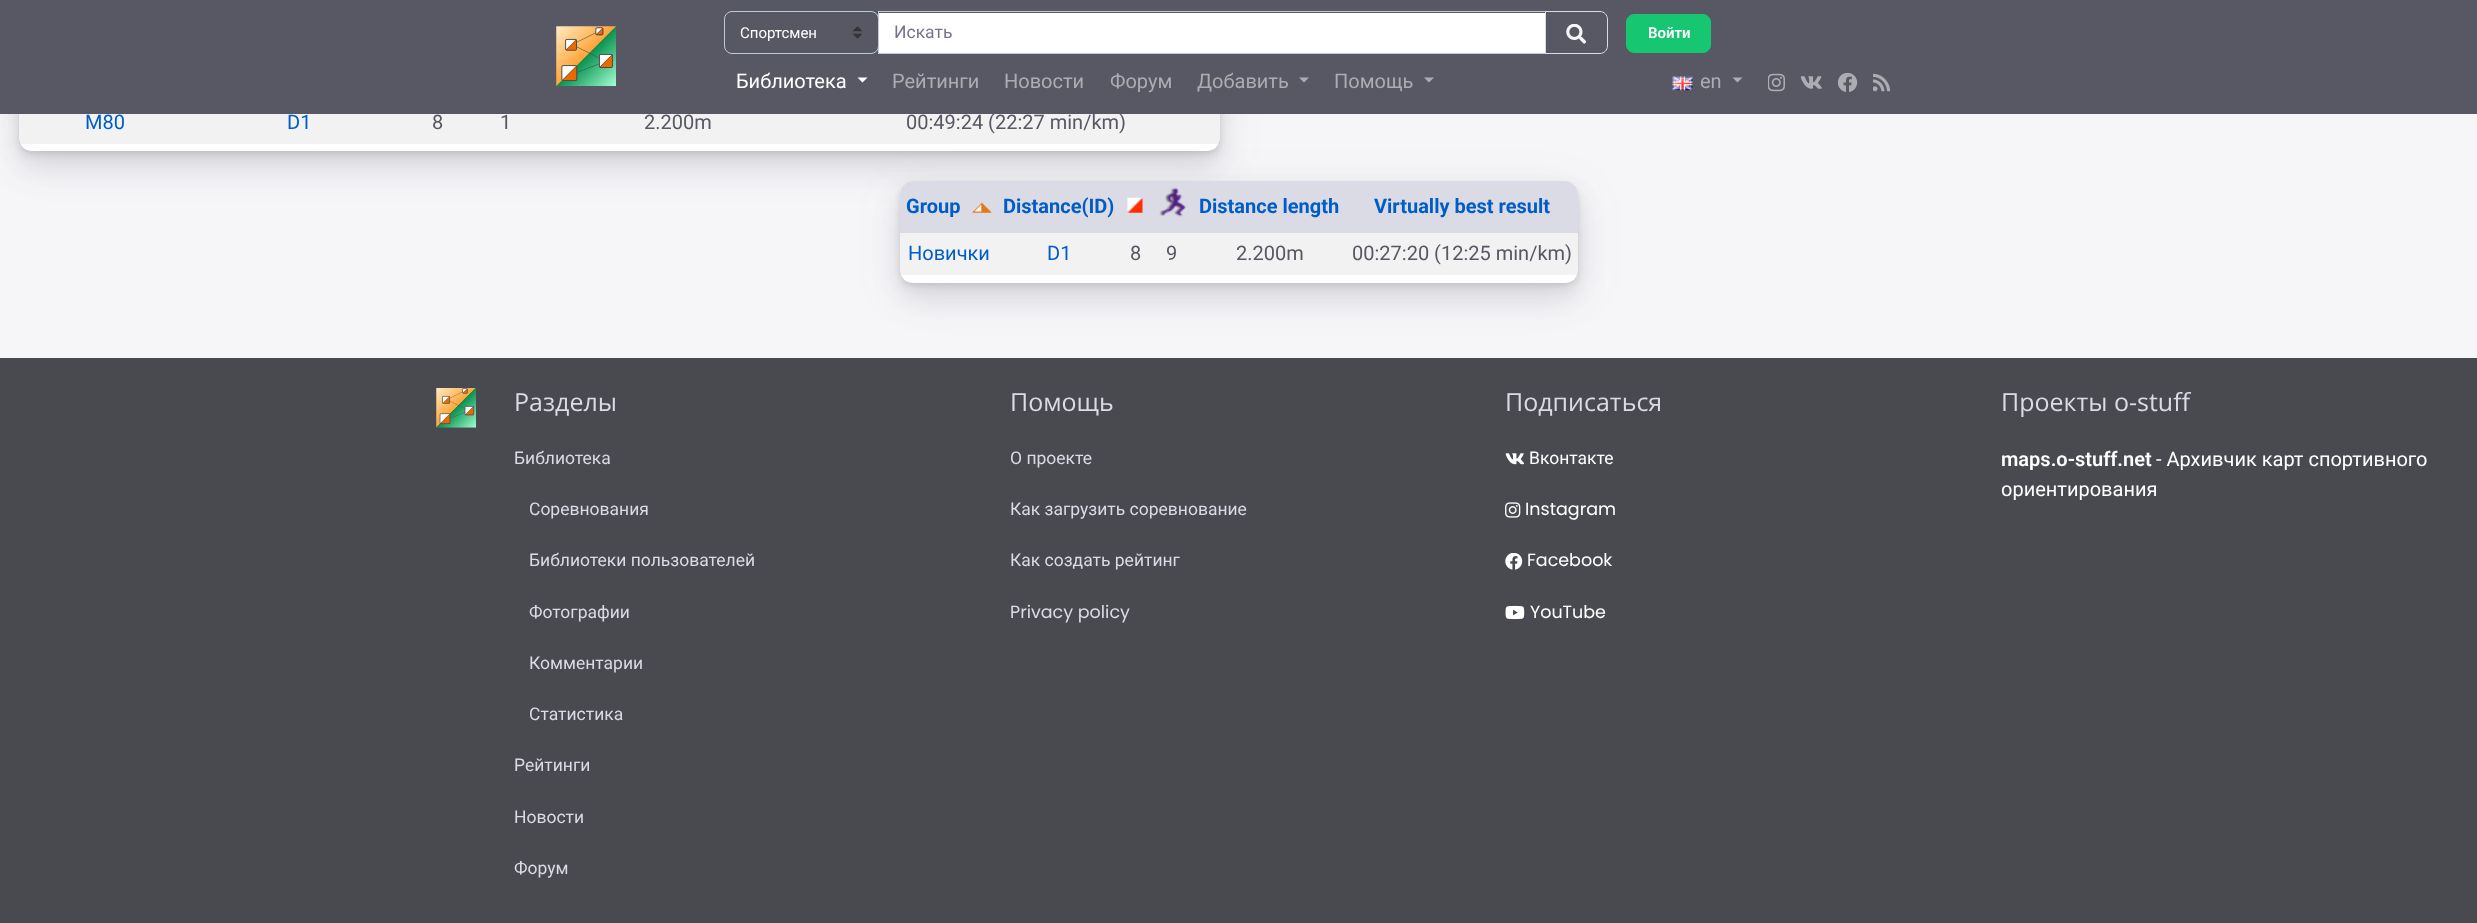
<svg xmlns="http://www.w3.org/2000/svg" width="2477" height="923">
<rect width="100%" height="100%" fill="#f6f6f9"/>
<rect x="19" y="-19" width="1201" height="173" rx="13" fill="#5858651a" filter="blur(2px)"/>
<rect x="19" y="-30" width="1201" height="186" rx="13" fill="#5858651f" filter="blur(5.5px)"/>
<rect x="19" y="-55" width="1201" height="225" rx="13" fill="#5858651a" filter="blur(14px)"/>
<rect x="19" y="-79" width="1201" height="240" rx="13" fill="#5858651a" filter="blur(22px)"/>
<rect x="19" y="-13" width="1201" height="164" rx="13" fill="#fff"/>
<rect width="2477" height="114" fill="#585865"/>
<image x="556" y="26" width="60" height="60" href="media/1.png"/>
<image x="853" y="26" width="10" height="13" href="media/2.png"/>
<rect x="724.5" y="11.5" width="154" height="42" rx="7.5" fill="none" stroke="#becad6"/>
<text x="740" y="38" style="font-family:Roboto;font-size:15px;fill:#fff">Спортсмен</text>
<rect x="879" y="13" width="666" height="40" fill="#fff"/>
<rect x="878.5" y="11.5" width="667" height="42" fill="none" stroke="#becad6"/>
<text x="894" y="38" style="font-family:Roboto;font-size:17.5px;fill:#747490">Искать</text>
<path d="M1545.5 11.5h54.5c4 0 7.5 3.5 7.5 7.5v27c0 4-3.5 7.5-7.5 7.5h-54.5z" fill="none" stroke="#dbdbe6"/>
<image x="1566" y="24" width="20" height="20" href="media/3.png"/>
<rect x="1626.5" y="14.5" width="84" height="38" rx="7.5" fill="#17c671" stroke="#17c671"/>
<text x="1648" y="38" style="font-family:Roboto;font-size:15px;font-weight:600;fill:#fff">Войти</text>
<text x="736" y="88" style="font-family:Roboto;font-size:20px;fill:#fff">Библиотека</text>
<path d="M857.5 77.5h10l-5 5z" fill="#fff"/>
<text x="892" y="88" style="font-family:Roboto;font-size:20px;fill:#acacb2">Рейтинги</text>
<text x="1004" y="88" style="font-family:Roboto;font-size:20px;fill:#acacb2">Новости</text>
<text x="1110" y="88" style="font-family:Roboto;font-size:20px;fill:#acacb2">Форум</text>
<text x="1197" y="88" style="font-family:Roboto;font-size:20px;fill:#acacb2">Добавить</text>
<path d="M1299 77.5h10l-5 5z" fill="#acacb2"/>
<text x="1334" y="88" style="font-family:Roboto;font-size:20px;fill:#acacb2">Помощь</text>
<path d="M1424 77.5h10l-5 5z" fill="#acacb2"/>
<image x="1672" y="76" width="21" height="15" href="media/4.png"/>
<text x="1700" y="88" style="font-family:Roboto;font-size:20px;fill:#acacb2">en</text>
<path d="M1732.5 77.5h10l-5 5z" fill="#acacb2"/>
<image x="1768" y="73" width="17" height="19" href="media/5.png"/>
<image x="1800" y="76" width="22" height="13" href="media/6.png"/>
<image x="1838" y="73" width="20" height="19" href="media/7.png"/>
<image x="1873" y="73" width="17" height="19" href="media/8.png"/>
<rect x="19" y="114" width="1201" height="30" fill="#0000000d"/>
<text x="85" y="129" style="font-family:Roboto;font-size:20px;fill:#005dc7">М80</text>
<text x="287" y="129" style="font-family:Roboto;font-size:20px;fill:#005dc7">D1</text>
<text x="432" y="129" style="font-family:Roboto;font-size:20px;fill:#585865">8</text>
<text x="500" y="129" style="font-family:Roboto;font-size:20px;fill:#585865">1</text>
<text x="644" y="129" style="font-family:Roboto;font-size:20px;fill:#585865">2.200m</text>
<text x="906" y="129" style="font-family:Roboto;font-size:20px;fill:#585865">00:49:24 (22:27 min/km)</text>
<rect x="900" y="184" width="678" height="101" rx="13" fill="#5858651a" filter="blur(2px)"/>
<rect x="900" y="186" width="678" height="102" rx="13" fill="#5858651f" filter="blur(5.5px)"/>
<rect x="900" y="200" width="678" height="101" rx="13" fill="#5858651a" filter="blur(14px)"/>
<rect y="358" width="2477" height="565" fill="#494950"/>
<rect x="900" y="191" width="678" height="102" rx="13" fill="#5858651a" filter="blur(22px)"/>
<rect x="900" y="181" width="678" height="102" rx="13" fill="#fff"/>
<path d="M913 181h85v52h-98v-39c0-7 6-13 13-13z" fill="#dbdbe6"/>
<text x="906" y="213" style="font-family:Roboto;font-size:20px;font-weight:bold;fill:#005dc7">Group</text>
<image x="972" y="202" width="20" height="11" href="media/9.png"/>
<rect x="998" y="181" width="348" height="52" fill="#dbdbe6"/>
<text x="1003" y="213" style="font-family:Roboto;font-size:20px;font-weight:bold;fill:#005dc7">Distance(ID)</text>
<image x="1127" y="197" width="16" height="16" href="media/10.png"/>
<image x="1159" y="187" width="28" height="30" href="media/11.png"/>
<text x="1199" y="213" style="font-family:Roboto;font-size:20px;font-weight:bold;fill:#005dc7">Distance length</text>
<path d="M1346 181h219c7 0 13 6 13 13v39h-232z" fill="#dbdbe6"/>
<text x="1374" y="213" style="font-family:Roboto;font-size:20px;font-weight:bold;fill:#005dc7">Virtually best result</text>
<rect x="900" y="233" width="678" height="42" fill="#0000000d"/>
<text x="908" y="260" style="font-family:Roboto;font-size:20px;fill:#005dc7">Новички</text>
<text x="1047" y="260" style="font-family:Roboto;font-size:20px;fill:#005dc7">D1</text>
<text x="1130" y="260" style="font-family:Roboto;font-size:20px;fill:#585865">8</text>
<text x="1166" y="260" style="font-family:Roboto;font-size:20px;fill:#585865">9</text>
<text x="1236" y="260" style="font-family:Roboto;font-size:20px;fill:#585865">2.200m</text>
<text x="1352" y="260" style="font-family:Roboto;font-size:20px;fill:#585865">00:27:20 (12:25 min/km)</text>
<image x="436" y="388" width="40" height="40" href="media/12.png"/>
<text x="514" y="411" style="font-family:Open Sans;font-size:25px;fill:#dbdbe6">Разделы</text>
<text x="514" y="464" style="font-family:Roboto;font-size:17.5px;fill:#dbdbe6">Библиотека</text>
<text x="529" y="515" style="font-family:Roboto;font-size:17.5px;fill:#dbdbe6">Соревнования</text>
<text x="529" y="566" style="font-family:Roboto;font-size:17.5px;fill:#dbdbe6">Библиотеки пользователей</text>
<text x="529" y="618" style="font-family:Roboto;font-size:17.5px;fill:#dbdbe6">Фотографии</text>
<text x="529" y="669" style="font-family:Roboto;font-size:17.5px;fill:#dbdbe6">Комментарии</text>
<text x="529" y="720" style="font-family:Roboto;font-size:17.5px;fill:#dbdbe6">Статистика</text>
<text x="514" y="771" style="font-family:Roboto;font-size:17.5px;fill:#dbdbe6">Рейтинги</text>
<text x="514" y="823" style="font-family:Roboto;font-size:17.5px;fill:#dbdbe6">Новости</text>
<text x="514" y="874" style="font-family:Roboto;font-size:17.5px;fill:#dbdbe6">Форум</text>
<text x="1010" y="411" style="font-family:Open Sans;font-size:25px;fill:#dbdbe6">Помощь</text>
<text x="1010" y="464" style="font-family:Roboto;font-size:17.5px;fill:#dbdbe6">О проекте</text>
<text x="1010" y="515" style="font-family:Roboto;font-size:17.5px;fill:#dbdbe6">Как загрузить соревнование</text>
<text x="1010" y="566" style="font-family:Roboto;font-size:17.5px;fill:#dbdbe6">Как создать рейтинг</text>
<text x="1010" y="618" style="font-family:Poppins;font-size:17.5px;fill:#dbdbe6">Privacy policy</text>
<text x="1505" y="411" style="font-family:Open Sans;font-size:25px;fill:#dbdbe6">Подписаться</text>
<image x="1505" y="453" width="20" height="12" href="media/13.png"/>
<text x="1529" y="464" style="font-family:Roboto;font-size:17.5px;fill:#fff">Вконтакте</text>
<image x="1505" y="502" width="16" height="16" href="media/14.png"/>
<text x="1525" y="515" style="font-family:Poppins;font-size:17.5px;fill:#fff">Instagram</text>
<image x="1505" y="553" width="18" height="17" href="media/15.png"/>
<text x="1527" y="566" style="font-family:Poppins;font-size:17.5px;fill:#fff">Facebook</text>
<image x="1505" y="605" width="20" height="15" href="media/16.png"/>
<text x="1530" y="618" style="font-family:Poppins;font-size:17.5px;fill:#fff">YouTube</text>
<text x="2001" y="411" style="font-family:Open Sans;font-size:25px;fill:#dbdbe6">Проекты o-stuff</text>
<text x="2001" y="466" style="font-family:Roboto;font-size:20px;font-weight:600;fill:#fff">maps.o-stuff.net</text>
<text x="2156" y="466" style="font-family:Roboto;font-size:20px;fill:#fff">- Архивчик карт спортивного</text>
<text x="2001" y="496" style="font-family:Roboto;font-size:20px;fill:#fff">ориентирования</text>
</svg>
